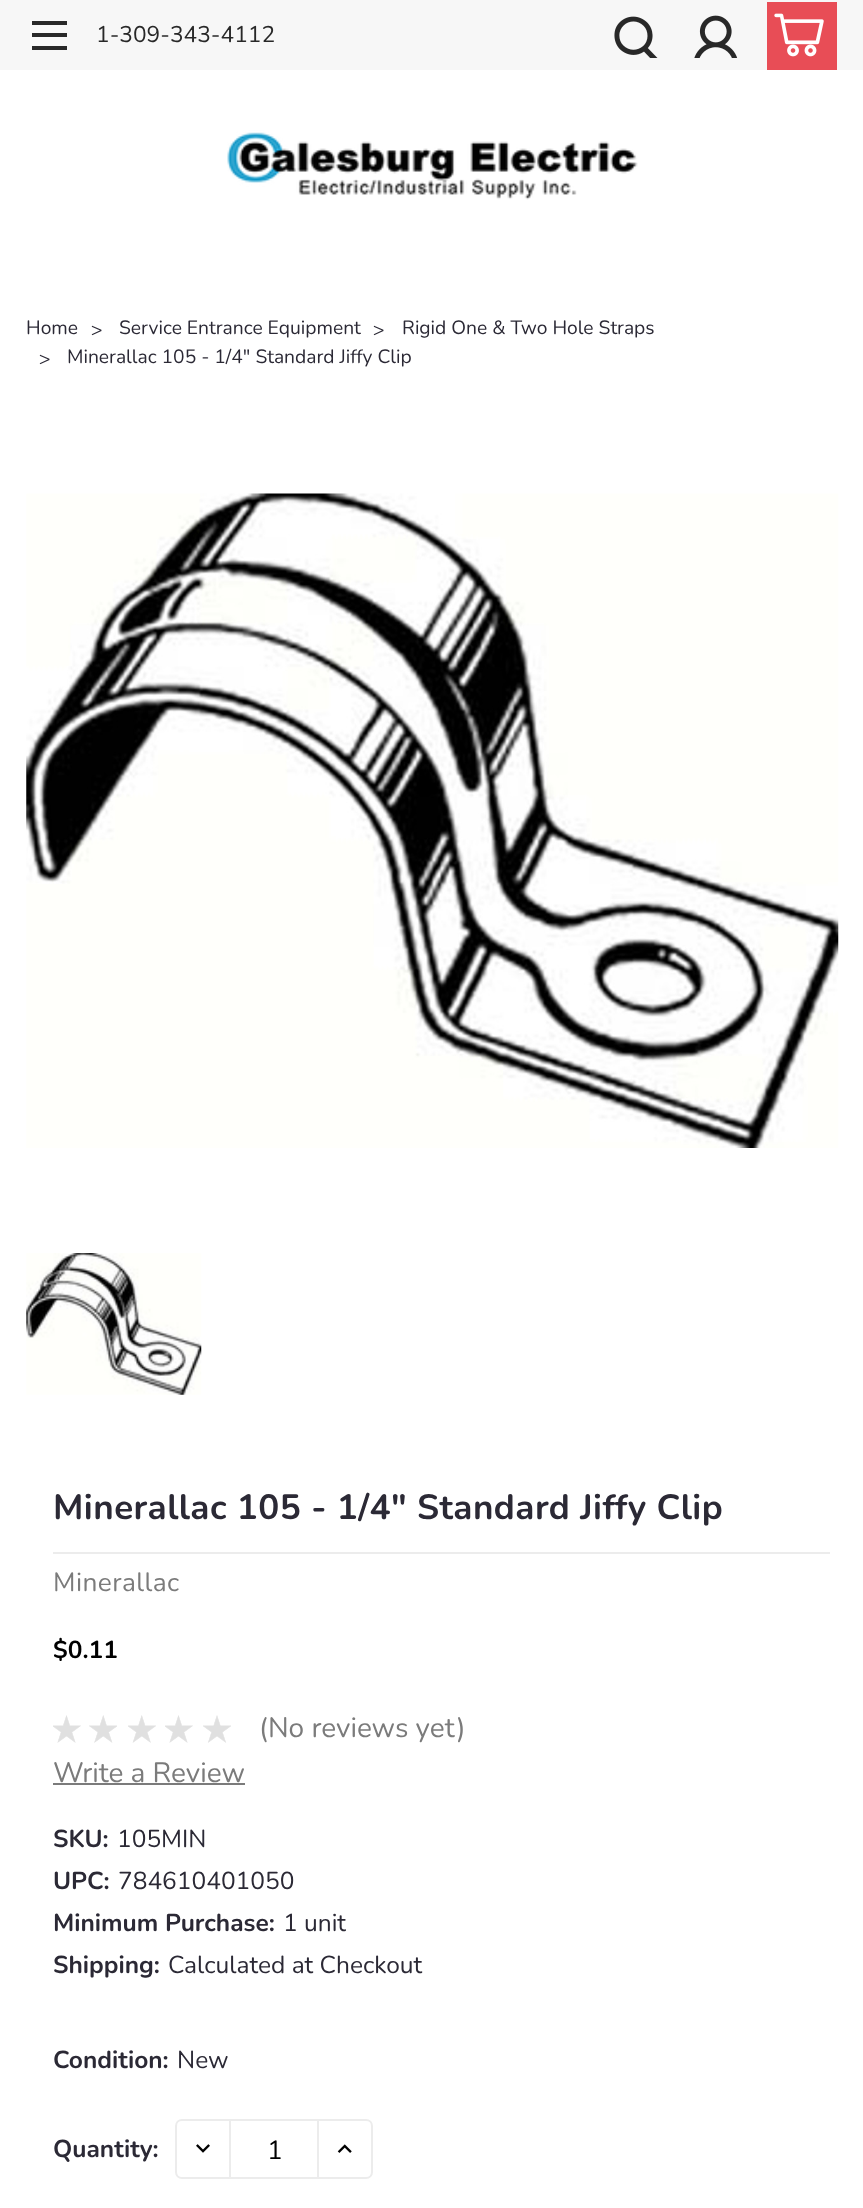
<svg xmlns="http://www.w3.org/2000/svg" width="863" height="2208">
<rect width="100%" height="100%" fill="#fff"/>
<rect width="863" height="70" fill="#f7f7f7"/>
<rect x="32" y="33" width="35" height="4" fill="#282828"/>
<rect x="32" y="21" width="35" height="4" fill="#282828"/>
<rect x="32" y="46" width="35" height="4" fill="#282828"/>
<text x="96" y="42" style="font-family:Nunito;font-size:22.75px;fill:#282828">1-309-343-4112</text>
<image x="614" y="16" width="44" height="42" href="media/1.png"/>
<image x="694" y="15" width="44" height="43" href="media/2.png"/>
<rect x="767" y="2" width="70" height="68" fill="#e84d56"/>
<image x="774" y="13" width="50" height="44" href="media/3.png"/>
<image x="227" y="130" width="411" height="70" href="media/4.png"/>
<text x="26" y="334" style="font-family:Nunito;font-size:19.25px;fill:#2b2935">Home</text>
<text x="91" y="336" style="font-family:Nunito;font-size:19.25px;fill:#2b2935">&gt;</text>
<text x="119" y="334" style="font-family:Nunito;font-size:19.25px;fill:#2b2935">Service Entrance Equipment</text>
<text x="373" y="336" style="font-family:Nunito;font-size:19.25px;fill:#2b2935">&gt;</text>
<text x="402" y="334" style="font-family:Nunito;font-size:19.25px;fill:#2b2935">Rigid One &amp; Two Hole Straps</text>
<text x="39" y="365" style="font-family:Nunito;font-size:19.25px;fill:#2b2935">&gt;</text>
<text x="67" y="363" style="font-family:Nunito;font-size:19.25px;fill:#2b2935">Minerallac 105 - 1/4" Standard Jiffy Clip</text>
<image x="26" y="493" width="813" height="655" href="media/5.png"/>
<image x="26" y="1253" width="176" height="142" href="media/6.png"/>
<rect x="53" y="1552" width="777" height="2" fill="#ececec"/>
<text x="53" y="1519" style="font-family:Nunito;font-size:35px;font-weight:bold;letter-spacing:0.45px;fill:#2b2935">Minerallac 105 - 1/4" Standard Jiffy Clip</text>
<text x="53" y="1591" style="font-family:Nunito;font-size:26.25px;letter-spacing:0.45px;fill:#7b7b7b">Minerallac</text>
<text x="53" y="1658" style="font-family:Nunito;font-size:24.5px;font-weight:bold;fill:#000">$0.11</text>
<image x="53" y="1715" width="28" height="28" href="media/7.png"/>
<image x="89" y="1715" width="28" height="28" href="media/8.png"/>
<image x="128" y="1715" width="28" height="28" href="media/9.png"/>
<image x="165" y="1715" width="28" height="28" href="media/7.png"/>
<image x="203" y="1715" width="28" height="28" href="media/10.png"/>
<text x="259" y="1737" style="font-family:Nunito;font-size:28px;fill:#7b7b7b">(No reviews yet)</text>
<text x="53" y="1782" style="font-family:Nunito;font-size:28px;fill:#7b7b7b">Write a Review</text>
<rect x="53" y="1783" width="192" height="2" fill="#7b7b7b"/>
<text x="53" y="1847" style="font-family:Nunito;font-size:24.5px;font-weight:bold;fill:#2b2935">SKU:</text>
<text x="117" y="1847" style="font-family:Nunito;font-size:24.5px;fill:#2b2935">105MIN</text>
<text x="53" y="1889" style="font-family:Nunito;font-size:24.5px;font-weight:bold;fill:#2b2935">UPC:</text>
<text x="118" y="1889" style="font-family:Nunito;font-size:24.5px;fill:#2b2935">784610401050</text>
<text x="53" y="1931" style="font-family:Nunito;font-size:24.5px;font-weight:bold;fill:#2b2935">Minimum Purchase:</text>
<text x="283" y="1931" style="font-family:Nunito;font-size:24.5px;fill:#2b2935">1 unit</text>
<text x="53" y="1973" style="font-family:Nunito;font-size:24.5px;font-weight:bold;fill:#2b2935">Shipping:</text>
<text x="168" y="1973" style="font-family:Nunito;font-size:24.5px;fill:#2b2935">Calculated at Checkout</text>
<text x="53" y="2068" style="font-family:Nunito;font-size:24.5px;font-weight:bold;fill:#2b2935">Condition:</text>
<text x="177" y="2068" style="font-family:Nunito;font-size:24.5px;fill:#2b2935">New</text>
<text x="53" y="2157" style="font-family:Nunito;font-size:24.5px;font-weight:bold;fill:#2b2935">Quantity:</text>
<path d="M182 2120h48v58h-48c-3.5 0-6-2.5-6-6v-46c0-3.5 2.5-6 6-6z" fill="none" stroke="#ececec" stroke-width="2"/>
<image x="196" y="2144" width="14" height="9" href="media/11.png"/>
<rect x="231" y="2119" width="86" height="2" fill="#ececec"/>
<rect x="231" y="2177" width="86" height="2" fill="#ececec"/>
<text x="267" y="2159" style="font-family:Nunito;font-size:26.25px;fill:#000">1</text>
<path d="M318 2120h48c3.5 0 6 2.5 6 6v46c0 3.5-2.5 6-6 6h-48z" fill="none" stroke="#ececec" stroke-width="2"/>
<image x="337" y="2144" width="15" height="9" href="media/12.png"/>
</svg>
